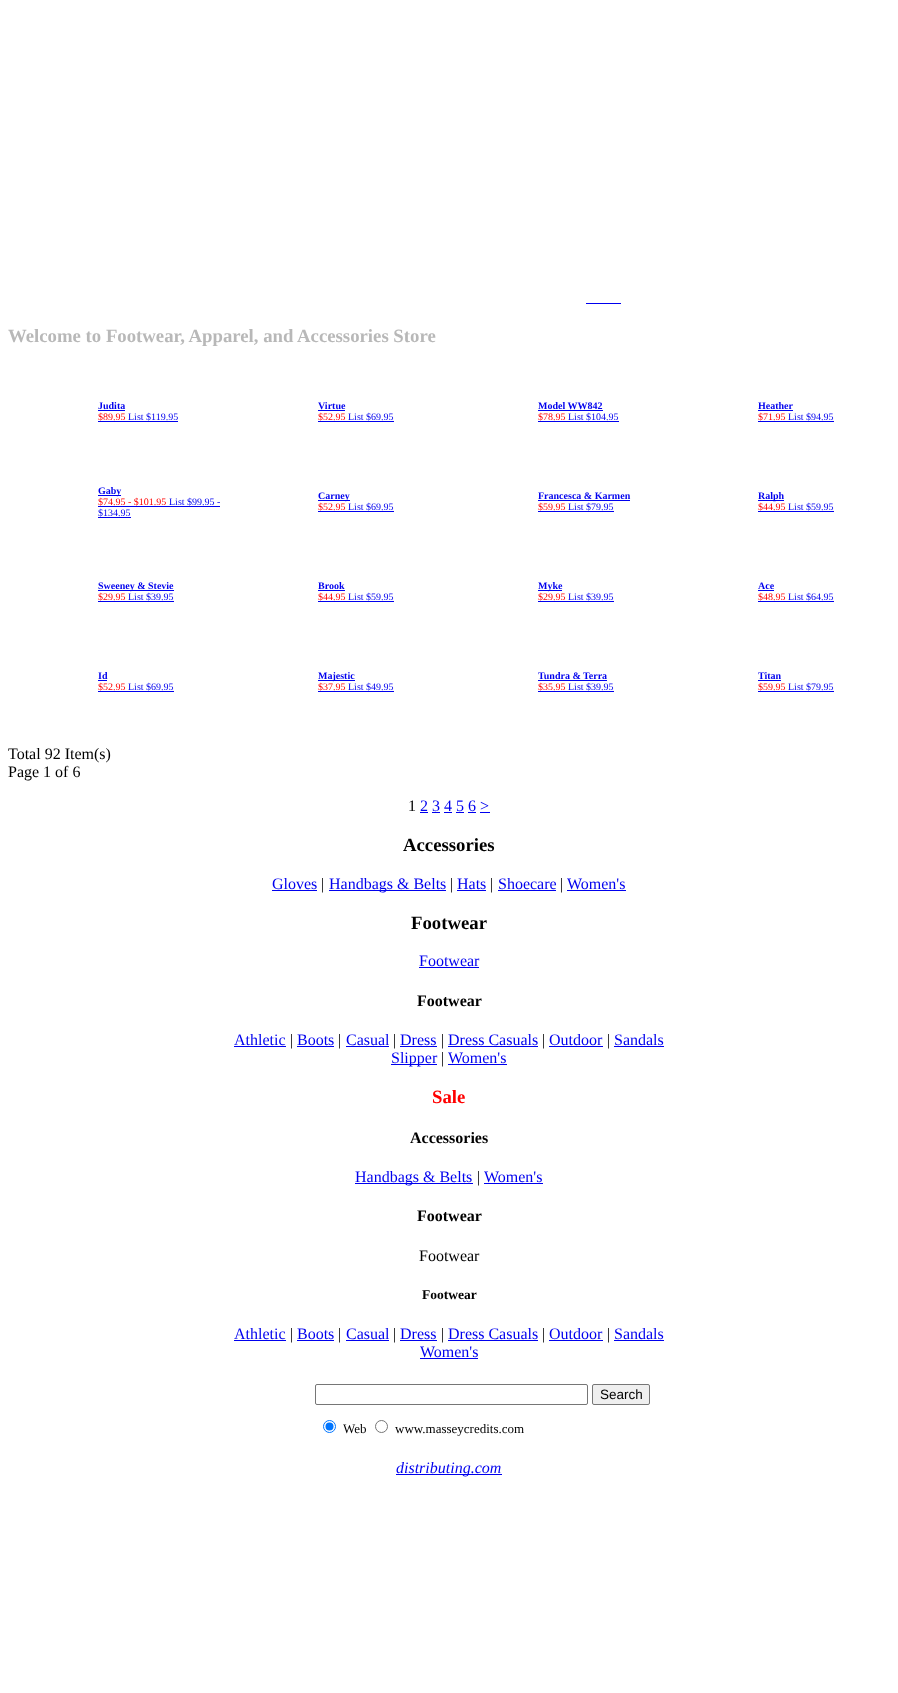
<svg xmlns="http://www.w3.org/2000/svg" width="898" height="1693">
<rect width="100%" height="100%" fill="#fff"/>
<rect x="586" y="303" width="35" height="1" fill="#00e"/>
<text x="8" y="342" style="font-family:Liberation Serif;font-size:18.75px;font-weight:bold;fill:#b8b8b8">Welcome to Footwear, Apparel, and Accessories Store</text>
<text x="98" y="409" style="font-family:Liberation Serif;font-size:10px;font-weight:bold;fill:#00e">Judita</text>
<rect x="98" y="410" width="27" height="1" fill="#00e"/>
<text x="98" y="420" style="font-family:Liberation Serif;font-size:10px;fill:#f00">$89.95</text>
<rect x="98" y="421" width="80" height="1" fill="#00e"/>
<text x="128" y="420" style="font-family:Liberation Serif;font-size:10px;fill:#00e">List $119.95</text>
<text x="318" y="409" style="font-family:Liberation Serif;font-size:10px;font-weight:bold;fill:#00e">Virtue</text>
<rect x="318" y="410" width="27" height="1" fill="#00e"/>
<text x="318" y="420" style="font-family:Liberation Serif;font-size:10px;fill:#f00">$52.95</text>
<rect x="318" y="421" width="76" height="1" fill="#00e"/>
<text x="348" y="420" style="font-family:Liberation Serif;font-size:10px;fill:#00e">List $69.95</text>
<text x="538" y="409" style="font-family:Liberation Serif;font-size:10px;font-weight:bold;fill:#00e">Model WW842</text>
<rect x="538" y="410" width="65" height="1" fill="#00e"/>
<text x="538" y="420" style="font-family:Liberation Serif;font-size:10px;fill:#f00">$78.95</text>
<rect x="538" y="421" width="81" height="1" fill="#00e"/>
<text x="568" y="420" style="font-family:Liberation Serif;font-size:10px;fill:#00e">List $104.95</text>
<text x="758" y="409" style="font-family:Liberation Serif;font-size:10px;font-weight:bold;fill:#00e">Heather</text>
<rect x="758" y="410" width="35" height="1" fill="#00e"/>
<text x="758" y="420" style="font-family:Liberation Serif;font-size:10px;fill:#f00">$71.95</text>
<rect x="758" y="421" width="76" height="1" fill="#00e"/>
<text x="788" y="420" style="font-family:Liberation Serif;font-size:10px;fill:#00e">List $94.95</text>
<rect x="98" y="495" width="23" height="1" fill="#00e"/>
<text x="98" y="494" style="font-family:Liberation Serif;font-size:10px;font-weight:bold;fill:#00e">Gaby</text>
<text x="98" y="505" style="font-family:Liberation Serif;font-size:10px;fill:#f00">$74.95 - $101.95</text>
<rect x="98" y="506" width="122" height="1" fill="#00e"/>
<text x="169" y="505" style="font-family:Liberation Serif;font-size:10px;fill:#00e">List $99.95 -</text>
<text x="98" y="516" style="font-family:Liberation Serif;font-size:10px;fill:#00e">$134.95</text>
<rect x="98" y="517" width="33" height="1" fill="#00e"/>
<rect x="318" y="500" width="32" height="1" fill="#00e"/>
<text x="318" y="499" style="font-family:Liberation Serif;font-size:10px;font-weight:bold;fill:#00e">Carney</text>
<text x="318" y="510" style="font-family:Liberation Serif;font-size:10px;fill:#f00">$52.95</text>
<rect x="318" y="511" width="76" height="1" fill="#00e"/>
<text x="348" y="510" style="font-family:Liberation Serif;font-size:10px;fill:#00e">List $69.95</text>
<text x="538" y="499" style="font-family:Liberation Serif;font-size:10px;font-weight:bold;fill:#00e">Francesca &amp; Karmen</text>
<rect x="538" y="500" width="92" height="1" fill="#00e"/>
<text x="538" y="510" style="font-family:Liberation Serif;font-size:10px;fill:#f00">$59.95</text>
<rect x="538" y="511" width="76" height="1" fill="#00e"/>
<text x="568" y="510" style="font-family:Liberation Serif;font-size:10px;fill:#00e">List $79.95</text>
<rect x="758" y="500" width="26" height="1" fill="#00e"/>
<text x="758" y="499" style="font-family:Liberation Serif;font-size:10px;font-weight:bold;fill:#00e">Ralph</text>
<text x="758" y="510" style="font-family:Liberation Serif;font-size:10px;fill:#f00">$44.95</text>
<rect x="758" y="511" width="76" height="1" fill="#00e"/>
<text x="788" y="510" style="font-family:Liberation Serif;font-size:10px;fill:#00e">List $59.95</text>
<rect x="98" y="590" width="76" height="1" fill="#00e"/>
<text x="98" y="589" style="font-family:Liberation Serif;font-size:10px;font-weight:bold;fill:#00e">Sweeney &amp; Stevie</text>
<text x="98" y="600" style="font-family:Liberation Serif;font-size:10px;fill:#f00">$29.95</text>
<rect x="98" y="601" width="76" height="1" fill="#00e"/>
<text x="128" y="600" style="font-family:Liberation Serif;font-size:10px;fill:#00e">List $39.95</text>
<text x="318" y="589" style="font-family:Liberation Serif;font-size:10px;font-weight:bold;fill:#00e">Brook</text>
<rect x="318" y="590" width="27" height="1" fill="#00e"/>
<text x="318" y="600" style="font-family:Liberation Serif;font-size:10px;fill:#f00">$44.95</text>
<rect x="318" y="601" width="76" height="1" fill="#00e"/>
<text x="348" y="600" style="font-family:Liberation Serif;font-size:10px;fill:#00e">List $59.95</text>
<rect x="538" y="590" width="24" height="1" fill="#00e"/>
<text x="538" y="589" style="font-family:Liberation Serif;font-size:10px;font-weight:bold;fill:#00e">Myke</text>
<text x="538" y="600" style="font-family:Liberation Serif;font-size:10px;fill:#f00">$29.95</text>
<rect x="538" y="601" width="76" height="1" fill="#00e"/>
<text x="568" y="600" style="font-family:Liberation Serif;font-size:10px;fill:#00e">List $39.95</text>
<text x="758" y="589" style="font-family:Liberation Serif;font-size:10px;font-weight:bold;fill:#00e">Ace</text>
<rect x="758" y="590" width="16" height="1" fill="#00e"/>
<text x="758" y="600" style="font-family:Liberation Serif;font-size:10px;fill:#f00">$48.95</text>
<rect x="758" y="601" width="76" height="1" fill="#00e"/>
<text x="788" y="600" style="font-family:Liberation Serif;font-size:10px;fill:#00e">List $64.95</text>
<text x="98" y="679" style="font-family:Liberation Serif;font-size:10px;font-weight:bold;fill:#00e">Id</text>
<rect x="98" y="680" width="9" height="1" fill="#00e"/>
<text x="98" y="690" style="font-family:Liberation Serif;font-size:10px;fill:#f00">$52.95</text>
<rect x="98" y="691" width="76" height="1" fill="#00e"/>
<text x="128" y="690" style="font-family:Liberation Serif;font-size:10px;fill:#00e">List $69.95</text>
<rect x="318" y="680" width="37" height="1" fill="#00e"/>
<text x="318" y="679" style="font-family:Liberation Serif;font-size:10px;font-weight:bold;fill:#00e">Majestic</text>
<text x="318" y="690" style="font-family:Liberation Serif;font-size:10px;fill:#f00">$37.95</text>
<rect x="318" y="691" width="76" height="1" fill="#00e"/>
<text x="348" y="690" style="font-family:Liberation Serif;font-size:10px;fill:#00e">List $49.95</text>
<text x="538" y="679" style="font-family:Liberation Serif;font-size:10px;font-weight:bold;fill:#00e">Tundra &amp; Terra</text>
<rect x="538" y="680" width="69" height="1" fill="#00e"/>
<text x="538" y="690" style="font-family:Liberation Serif;font-size:10px;fill:#f00">$35.95</text>
<rect x="538" y="691" width="76" height="1" fill="#00e"/>
<text x="568" y="690" style="font-family:Liberation Serif;font-size:10px;fill:#00e">List $39.95</text>
<text x="758" y="679" style="font-family:Liberation Serif;font-size:10px;font-weight:bold;fill:#00e">Titan</text>
<rect x="758" y="680" width="23" height="1" fill="#00e"/>
<text x="758" y="690" style="font-family:Liberation Serif;font-size:10px;fill:#f00">$59.95</text>
<rect x="758" y="691" width="76" height="1" fill="#00e"/>
<text x="788" y="690" style="font-family:Liberation Serif;font-size:10px;fill:#00e">List $79.95</text>
<text x="8" y="759" style="font-family:Liberation Serif;font-size:16px;fill:#000">Total 92 Item(s)</text>
<text x="8" y="777" style="font-family:Liberation Serif;font-size:16px;fill:#000">Page 1 of 6</text>
<text x="408" y="811" style="font-family:Liberation Serif;font-size:16px;fill:#000">1</text>
<text x="420" y="811" style="font-family:Liberation Serif;font-size:16px;fill:#00e">2 3 4 5 6 &gt;</text>
<rect x="420" y="812" width="8" height="1" fill="#00e"/>
<rect x="432" y="812" width="8" height="1" fill="#00e"/>
<rect x="444" y="812" width="8" height="1" fill="#00e"/>
<rect x="456" y="812" width="8" height="1" fill="#00e"/>
<rect x="468" y="812" width="8" height="1" fill="#00e"/>
<rect x="480" y="812" width="10" height="1" fill="#00e"/>
<text x="403" y="851" style="font-family:Liberation Serif;font-size:18.75px;font-weight:bold;fill:#000">Accessories</text>
<text x="272" y="889" style="font-family:Liberation Serif;font-size:16px;fill:#00e">Gloves</text>
<rect x="272" y="890" width="45" height="1" fill="#00e"/>
<text x="321" y="889" style="font-family:Liberation Serif;font-size:16px;fill:#000">|</text>
<rect x="329" y="890" width="117" height="1" fill="#00e"/>
<text x="329" y="889" style="font-family:Liberation Serif;font-size:16px;fill:#00e">Handbags &amp; Belts</text>
<text x="450" y="889" style="font-family:Liberation Serif;font-size:16px;fill:#000">|</text>
<text x="457" y="889" style="font-family:Liberation Serif;font-size:16px;fill:#00e">Hats</text>
<rect x="457" y="890" width="29" height="1" fill="#00e"/>
<text x="490" y="889" style="font-family:Liberation Serif;font-size:16px;fill:#000">|</text>
<text x="498" y="889" style="font-family:Liberation Serif;font-size:16px;fill:#00e">Shoecare</text>
<rect x="498" y="890" width="58" height="1" fill="#00e"/>
<text x="560" y="889" style="font-family:Liberation Serif;font-size:16px;fill:#000">|</text>
<text x="567" y="889" style="font-family:Liberation Serif;font-size:16px;fill:#00e">Women's</text>
<rect x="567" y="890" width="59" height="1" fill="#00e"/>
<text x="411" y="929" style="font-family:Liberation Serif;font-size:18.75px;font-weight:bold;fill:#000">Footwear</text>
<text x="419" y="966" style="font-family:Liberation Serif;font-size:16px;fill:#00e">Footwear</text>
<rect x="419" y="967" width="60" height="1" fill="#00e"/>
<text x="417" y="1006" style="font-family:Liberation Serif;font-size:16px;font-weight:bold;fill:#000">Footwear</text>
<text x="234" y="1045" style="font-family:Liberation Serif;font-size:16px;fill:#00e">Athletic</text>
<rect x="234" y="1046" width="52" height="1" fill="#00e"/>
<text x="290" y="1045" style="font-family:Liberation Serif;font-size:16px;fill:#000">|</text>
<text x="297" y="1045" style="font-family:Liberation Serif;font-size:16px;fill:#00e">Boots</text>
<rect x="297" y="1046" width="37" height="1" fill="#00e"/>
<text x="338" y="1045" style="font-family:Liberation Serif;font-size:16px;fill:#000">|</text>
<text x="346" y="1045" style="font-family:Liberation Serif;font-size:16px;fill:#00e">Casual</text>
<rect x="346" y="1046" width="43" height="1" fill="#00e"/>
<text x="393" y="1045" style="font-family:Liberation Serif;font-size:16px;fill:#000">|</text>
<text x="400" y="1045" style="font-family:Liberation Serif;font-size:16px;fill:#00e">Dress</text>
<rect x="400" y="1046" width="37" height="1" fill="#00e"/>
<text x="441" y="1045" style="font-family:Liberation Serif;font-size:16px;fill:#000">|</text>
<text x="448" y="1045" style="font-family:Liberation Serif;font-size:16px;fill:#00e">Dress Casuals</text>
<rect x="448" y="1046" width="90" height="1" fill="#00e"/>
<text x="542" y="1045" style="font-family:Liberation Serif;font-size:16px;fill:#000">|</text>
<text x="549" y="1045" style="font-family:Liberation Serif;font-size:16px;fill:#00e">Outdoor</text>
<rect x="549" y="1046" width="54" height="1" fill="#00e"/>
<text x="607" y="1045" style="font-family:Liberation Serif;font-size:16px;fill:#000">|</text>
<text x="614" y="1045" style="font-family:Liberation Serif;font-size:16px;fill:#00e">Sandals</text>
<rect x="614" y="1046" width="50" height="1" fill="#00e"/>
<rect x="391" y="1064" width="46" height="1" fill="#00e"/>
<text x="391" y="1063" style="font-family:Liberation Serif;font-size:16px;fill:#00e">Slipper</text>
<text x="441" y="1063" style="font-family:Liberation Serif;font-size:16px;fill:#000">|</text>
<text x="448" y="1063" style="font-family:Liberation Serif;font-size:16px;fill:#00e">Women's</text>
<rect x="448" y="1064" width="59" height="1" fill="#00e"/>
<text x="432" y="1103" style="font-family:Liberation Serif;font-size:18.75px;font-weight:bold;fill:#f00">Sale</text>
<text x="410" y="1143" style="font-family:Liberation Serif;font-size:16px;font-weight:bold;fill:#000">Accessories</text>
<rect x="355" y="1183" width="118" height="1" fill="#00e"/>
<text x="355" y="1182" style="font-family:Liberation Serif;font-size:16px;fill:#00e">Handbags &amp; Belts</text>
<text x="477" y="1182" style="font-family:Liberation Serif;font-size:16px;fill:#000">|</text>
<text x="484" y="1182" style="font-family:Liberation Serif;font-size:16px;fill:#00e">Women's</text>
<rect x="484" y="1183" width="59" height="1" fill="#00e"/>
<text x="417" y="1221" style="font-family:Liberation Serif;font-size:16px;font-weight:bold;fill:#000">Footwear</text>
<text x="419" y="1261" style="font-family:Liberation Serif;font-size:16px;fill:#000">Footwear</text>
<text x="422" y="1299" style="font-family:Liberation Serif;font-size:13.5px;font-weight:bold;fill:#000">Footwear</text>
<text x="234" y="1339" style="font-family:Liberation Serif;font-size:16px;fill:#00e">Athletic</text>
<rect x="234" y="1340" width="52" height="1" fill="#00e"/>
<text x="290" y="1339" style="font-family:Liberation Serif;font-size:16px;fill:#000">|</text>
<text x="297" y="1339" style="font-family:Liberation Serif;font-size:16px;fill:#00e">Boots</text>
<rect x="297" y="1340" width="37" height="1" fill="#00e"/>
<text x="338" y="1339" style="font-family:Liberation Serif;font-size:16px;fill:#000">|</text>
<text x="346" y="1339" style="font-family:Liberation Serif;font-size:16px;fill:#00e">Casual</text>
<rect x="346" y="1340" width="43" height="1" fill="#00e"/>
<text x="393" y="1339" style="font-family:Liberation Serif;font-size:16px;fill:#000">|</text>
<text x="400" y="1339" style="font-family:Liberation Serif;font-size:16px;fill:#00e">Dress</text>
<rect x="400" y="1340" width="37" height="1" fill="#00e"/>
<text x="441" y="1339" style="font-family:Liberation Serif;font-size:16px;fill:#000">|</text>
<text x="448" y="1339" style="font-family:Liberation Serif;font-size:16px;fill:#00e">Dress Casuals</text>
<rect x="448" y="1340" width="90" height="1" fill="#00e"/>
<text x="542" y="1339" style="font-family:Liberation Serif;font-size:16px;fill:#000">|</text>
<text x="549" y="1339" style="font-family:Liberation Serif;font-size:16px;fill:#00e">Outdoor</text>
<rect x="549" y="1340" width="54" height="1" fill="#00e"/>
<text x="607" y="1339" style="font-family:Liberation Serif;font-size:16px;fill:#000">|</text>
<text x="614" y="1339" style="font-family:Liberation Serif;font-size:16px;fill:#00e">Sandals</text>
<rect x="614" y="1340" width="50" height="1" fill="#00e"/>
<text x="420" y="1357" style="font-family:Liberation Serif;font-size:16px;fill:#00e">Women's</text>
<rect x="420" y="1358" width="58" height="1" fill="#00e"/>
<rect x="315.5" y="1384.5" width="272" height="20" rx="1.5" fill="none" stroke="#767676"/>
<rect x="592.5" y="1384.5" width="57" height="20" rx="1.5" fill="#efefef" stroke="#767676"/>
<text x="600" y="1399" style="font-family:Liberation Sans;font-size:13.5px;fill:#000">Search</text>
<circle cx="329.5" cy="1426.5" r="6" fill="none" stroke="#0075ff"/>
<circle cx="329.5" cy="1426.5" r="4" fill="#0075ff"/>
<text x="343" y="1433" style="font-family:Liberation Serif;font-size:13px;fill:#000">Web</text>
<circle cx="381.5" cy="1426.5" r="6" fill="none" stroke="#767676"/>
<text x="395" y="1433" style="font-family:Liberation Serif;font-size:13px;fill:#000">www.masseycredits.com</text>
<rect x="396" y="1474" width="106" height="1" fill="#00e"/>
<text x="396" y="1473" style="font-family:Liberation Serif;font-size:16px;font-style:italic;fill:#00e">distributing.com</text>
</svg>
